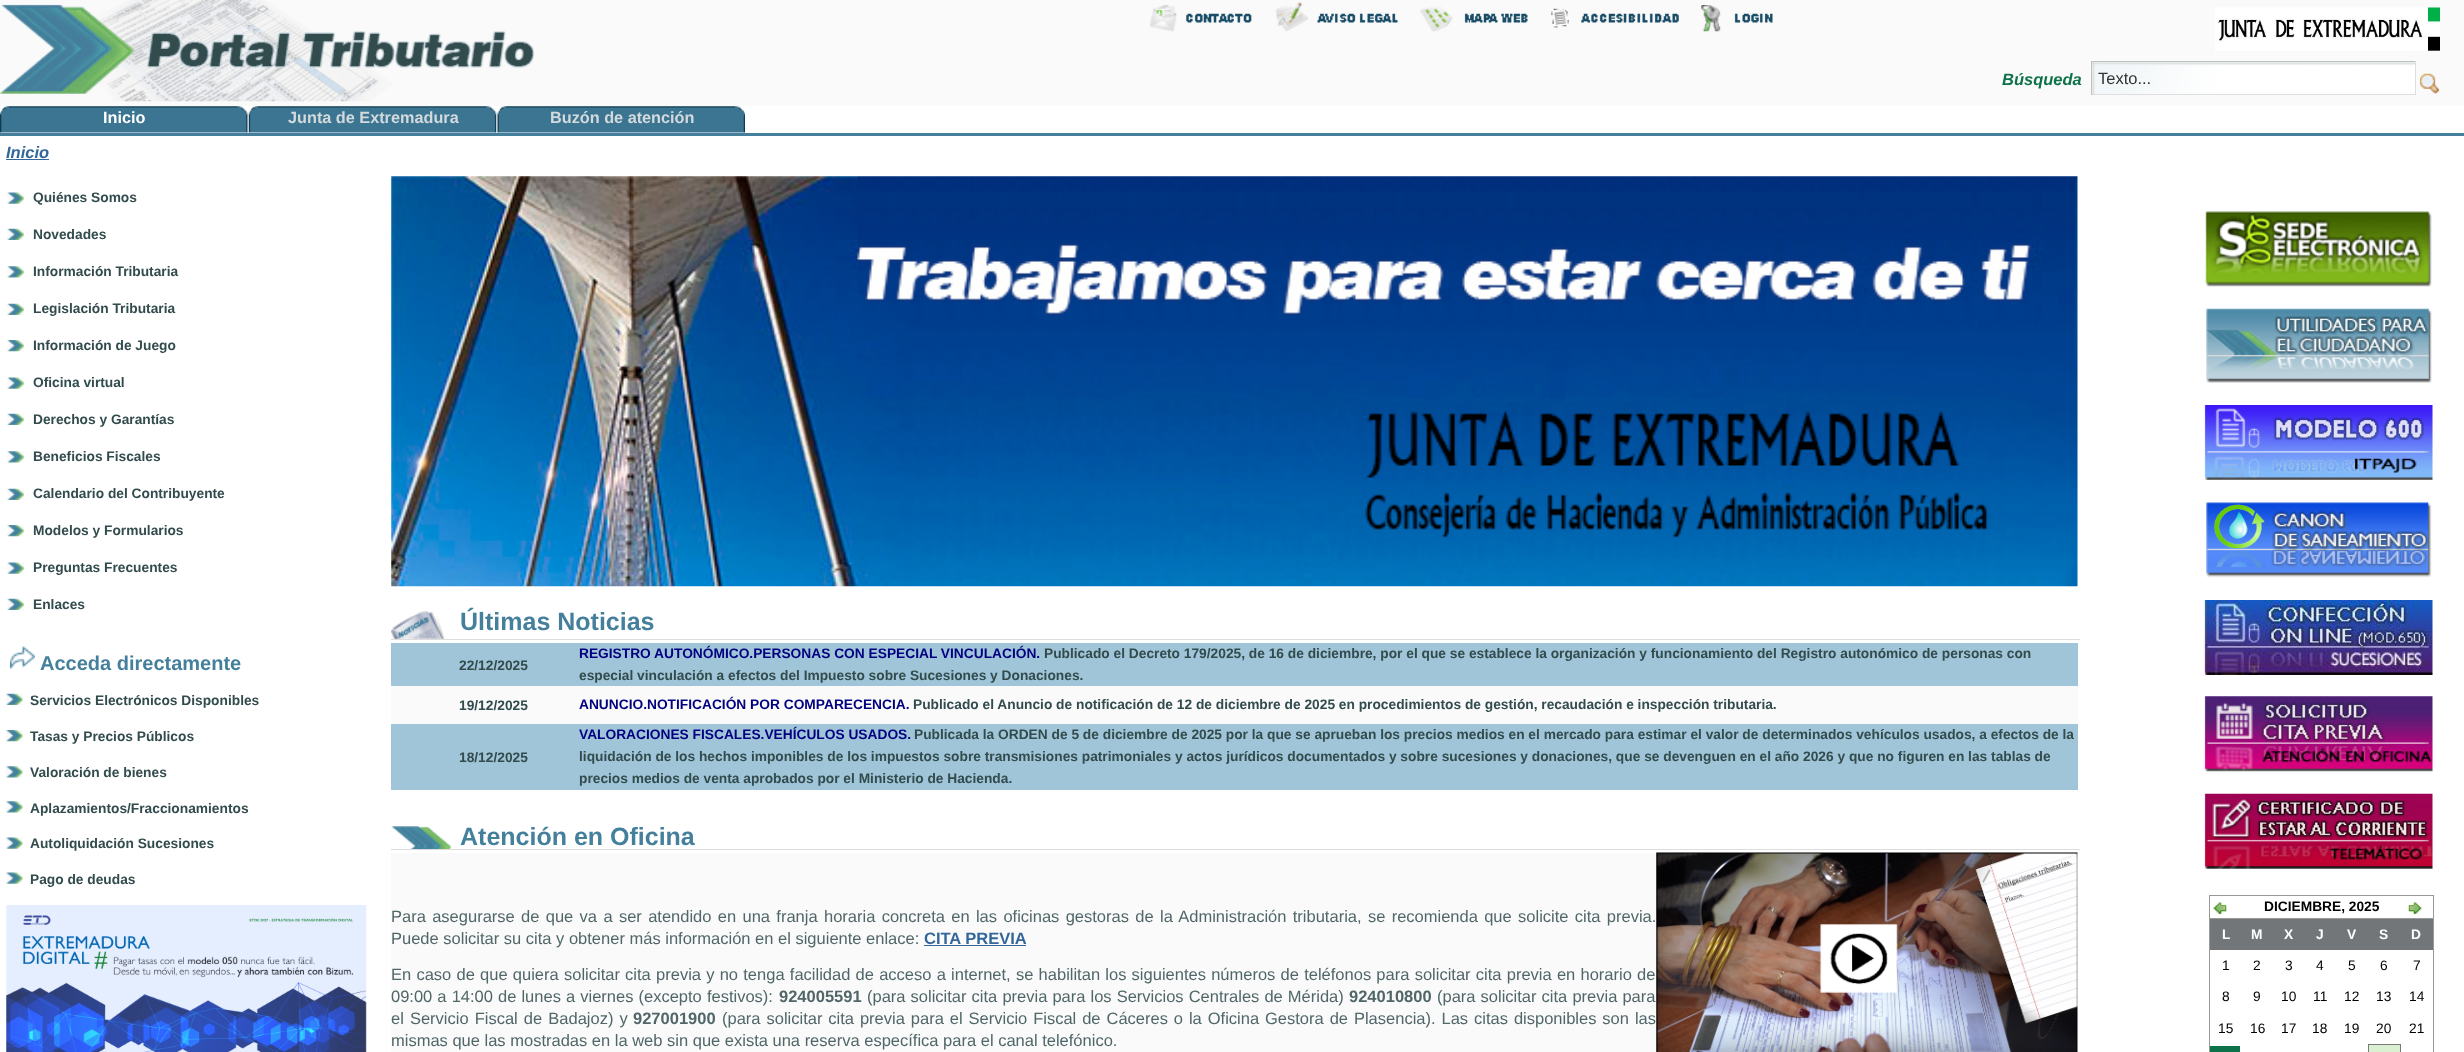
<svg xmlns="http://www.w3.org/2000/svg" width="2464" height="1052">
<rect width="100%" height="100%" fill="#fff"/>
<rect width="2464" height="106" fill="#fafafa"/>
<image x="0" y="0" width="535" height="102" href="media/1.png"/>
<image x="1150" y="5" width="102" height="27" href="media/2.png"/>
<image x="1276" y="2" width="122" height="30" href="media/3.png"/>
<image x="1420" y="6" width="108" height="26" href="media/4.png"/>
<image x="1551" y="8" width="128" height="20" href="media/5.png"/>
<image x="1701" y="5" width="72" height="27" href="media/6.png"/>
<image x="2215" y="7" width="225" height="44" href="media/7.png"/>
<text x="2002" y="85" style="font-family:Liberation Sans;font-size:16.5px;font-weight:bold;font-style:italic;fill:#0d724a">Búsqueda</text>
<rect x="2092" y="62" width="323" height="32" fill="#edf6f1"/>
<image x="2092" y="62" width="325" height="33" href="media/8.png"/>
<rect x="2091" y="61" width="325" height="1" fill="#bfbfbf"/>
<rect x="2415" y="61" width="1" height="34" fill="#dedede"/>
<rect x="2091" y="94" width="325" height="1" fill="#dedede"/>
<rect x="2091" y="61" width="1" height="34" fill="#bfbfbf"/>
<text x="2098" y="84" style="font-family:Liberation Sans;font-size:16.5px;fill:#333">Texto...</text>
<image x="2420" y="73" width="20" height="21" href="media/9.png"/>
<rect y="133" width="2464" height="3" fill="#447f9c"/>
<image x="0" y="106" width="248" height="27" href="media/10.png"/>
<text x="103" y="123" style="font-family:Liberation Sans;font-size:16.25px;font-weight:bold;fill:#fff">Inicio</text>
<image x="248" y="106" width="249" height="27" href="media/11.png"/>
<text x="288" y="123" style="font-family:Liberation Sans;font-size:16.25px;font-weight:bold;fill:#d3dadd">Junta de Extremadura</text>
<image x="497" y="106" width="248" height="27" href="media/12.png"/>
<text x="550" y="123" style="font-family:Liberation Sans;font-size:16.25px;font-weight:bold;fill:#d3dadd">Buzón de atención</text>
<text x="6" y="158" style="font-family:Liberation Sans;font-size:16.5px;font-weight:bold;font-style:italic;fill:#369">Inicio</text>
<rect x="6" y="159" width="43" height="1" fill="#369"/>
<image x="7" y="192" width="17" height="12" href="media/13.png"/>
<text x="33" y="202" style="font-family:Liberation Sans;font-size:13.75px;font-weight:bold;fill:#324b4d">Quiénes Somos</text>
<image x="7" y="228" width="17" height="12" href="media/14.png"/>
<text x="33" y="239" style="font-family:Liberation Sans;font-size:13.75px;font-weight:bold;fill:#324b4d">Novedades</text>
<image x="7" y="266" width="17" height="12" href="media/15.png"/>
<text x="33" y="276" style="font-family:Liberation Sans;font-size:13.75px;font-weight:bold;fill:#324b4d">Información Tributaria</text>
<image x="7" y="303" width="17" height="12" href="media/14.png"/>
<text x="33" y="313" style="font-family:Liberation Sans;font-size:13.75px;font-weight:bold;fill:#324b4d">Legislación Tributaria</text>
<image x="7" y="340" width="17" height="12" href="media/16.png"/>
<text x="33" y="350" style="font-family:Liberation Sans;font-size:13.75px;font-weight:bold;fill:#324b4d">Información de Juego</text>
<image x="7" y="377" width="17" height="12" href="media/13.png"/>
<text x="33" y="387" style="font-family:Liberation Sans;font-size:13.75px;font-weight:bold;fill:#324b4d">Oficina virtual</text>
<image x="7" y="413" width="17" height="12" href="media/14.png"/>
<text x="33" y="424" style="font-family:Liberation Sans;font-size:13.75px;font-weight:bold;fill:#324b4d">Derechos y Garantías</text>
<image x="7" y="451" width="17" height="12" href="media/15.png"/>
<text x="33" y="461" style="font-family:Liberation Sans;font-size:13.75px;font-weight:bold;fill:#324b4d">Beneficios Fiscales</text>
<image x="7" y="488" width="17" height="12" href="media/14.png"/>
<text x="33" y="498" style="font-family:Liberation Sans;font-size:13.75px;font-weight:bold;fill:#324b4d">Calendario del Contribuyente</text>
<image x="7" y="525" width="17" height="12" href="media/16.png"/>
<text x="33" y="535" style="font-family:Liberation Sans;font-size:13.75px;font-weight:bold;fill:#324b4d">Modelos y Formularios</text>
<image x="7" y="562" width="17" height="12" href="media/13.png"/>
<text x="33" y="572" style="font-family:Liberation Sans;font-size:13.75px;font-weight:bold;fill:#324b4d">Preguntas Frecuentes</text>
<image x="7" y="598" width="17" height="12" href="media/14.png"/>
<text x="33" y="609" style="font-family:Liberation Sans;font-size:13.75px;font-weight:bold;fill:#324b4d">Enlaces</text>
<image x="10" y="646" width="25" height="23" href="media/17.png"/>
<text x="40" y="670" style="font-family:Liberation Sans;font-size:20px;font-weight:bold;fill:#447f9c">Acceda directamente</text>
<image x="6" y="693" width="17" height="12" href="media/18.png"/>
<text x="30" y="705" style="font-family:Liberation Sans;font-size:13.75px;font-weight:bold;fill:#324b4d">Servicios Electrónicos Disponibles</text>
<image x="6" y="730" width="17" height="12" href="media/19.png"/>
<text x="30" y="741" style="font-family:Liberation Sans;font-size:13.75px;font-weight:bold;fill:#324b4d">Tasas y Precios Públicos</text>
<image x="6" y="766" width="17" height="12" href="media/20.png"/>
<text x="30" y="777" style="font-family:Liberation Sans;font-size:13.75px;font-weight:bold;fill:#324b4d">Valoración de bienes</text>
<image x="6" y="801" width="17" height="12" href="media/20.png"/>
<text x="30" y="813" style="font-family:Liberation Sans;font-size:13.75px;font-weight:bold;fill:#324b4d">Aplazamientos/Fraccionamientos</text>
<image x="6" y="837" width="17" height="12" href="media/21.png"/>
<text x="30" y="848" style="font-family:Liberation Sans;font-size:13.75px;font-weight:bold;fill:#324b4d">Autoliquidación Sucesiones</text>
<image x="6" y="872" width="17" height="12" href="media/21.png"/>
<text x="30" y="884" style="font-family:Liberation Sans;font-size:13.75px;font-weight:bold;fill:#324b4d">Pago de deudas</text>
<image x="6" y="905" width="361" height="147" href="media/22.png"/>
<image x="391" y="176" width="1687" height="411" href="media/23.png"/>
<image x="391" y="611" width="54" height="28" href="media/24.png"/>
<rect x="391" y="639" width="1689" height="1" fill="#ddd"/>
<text x="460" y="630" style="font-family:Liberation Sans;font-size:25px;font-weight:bold;fill:#447f9c">Últimas Noticias</text>
<rect x="391" y="643" width="1687" height="43" fill="#a0c5d8"/>
<text x="459" y="670" style="font-family:Liberation Sans;font-size:13.75px;font-weight:bold;fill:#324b4d">22/12/2025</text>
<text x="579" y="658" style="font-family:Liberation Sans;font-size:13.75px;font-weight:bold;fill:#000080">REGISTRO AUTONÓMICO.PERSONAS CON ESPECIAL VINCULACIÓN.</text>
<text x="1044" y="658" style="font-family:Liberation Sans;font-size:13.75px;font-weight:bold;fill:#324b4d">Publicado el Decreto 179/2025, de 16 de diciembre, por el que se establece la organización y funcionamiento del Registro autonómico de personas con</text>
<text x="579" y="680" style="font-family:Liberation Sans;font-size:13.75px;font-weight:bold;fill:#324b4d">especial vinculación a efectos del Impuesto sobre Sucesiones y Donaciones.</text>
<rect x="391" y="686" width="1687" height="38" fill="#fafafa"/>
<text x="459" y="710" style="font-family:Liberation Sans;font-size:13.75px;font-weight:bold;fill:#324b4d">19/12/2025</text>
<text x="579" y="709" style="font-family:Liberation Sans;font-size:13.75px;font-weight:bold;fill:#000080">ANUNCIO.NOTIFICACIÓN POR COMPARECENCIA.</text>
<text x="913" y="709" style="font-family:Liberation Sans;font-size:13.75px;font-weight:bold;fill:#324b4d">Publicado el Anuncio de notificación de 12 de diciembre de 2025 en procedimientos de gestión, recaudación e inspección tributaria.</text>
<rect x="391" y="724" width="1687" height="66" fill="#a0c5d8"/>
<text x="459" y="762" style="font-family:Liberation Sans;font-size:13.75px;font-weight:bold;fill:#324b4d">18/12/2025</text>
<text x="579" y="739" style="font-family:Liberation Sans;font-size:13.75px;font-weight:bold;fill:#000080">VALORACIONES FISCALES.VEHÍCULOS USADOS.</text>
<text x="914" y="739" style="font-family:Liberation Sans;font-size:13.75px;font-weight:bold;fill:#324b4d">Publicada la ORDEN de 5 de diciembre de 2025 por la que se aprueban los precios medios en el mercado para estimar el valor de determinados vehículos usados, a efectos de la</text>
<text x="579" y="761" style="font-family:Liberation Sans;font-size:13.75px;font-weight:bold;fill:#324b4d">liquidación de los hechos imponibles de los impuestos sobre transmisiones patrimoniales y actos jurídicos documentados y sobre sucesiones y donaciones, que se devenguen en el año 2026 y que no figuren en las tablas de</text>
<text x="579" y="783" style="font-family:Liberation Sans;font-size:13.75px;font-weight:bold;fill:#324b4d">precios medios de venta aprobados por el Ministerio de Hacienda.</text>
<image x="391" y="826" width="61" height="23" href="media/25.png"/>
<rect x="391" y="849" width="1689" height="1" fill="#ddd"/>
<text x="460" y="845" style="font-family:Liberation Sans;font-size:25px;font-weight:bold;fill:#447f9c">Atención en Oficina</text>
<rect x="391" y="853" width="1687" height="199" fill="#fafafa"/>
<text x="391" y="922" word-spacing="1.75" style="font-family:Liberation Sans;font-size:16.5px;fill:#506668">Para asegurarse de que va a ser atendido en una franja horaria concreta en las oficinas gestoras de la Administración tributaria, se recomienda que solicite cita previa.</text>
<text x="391" y="944" style="font-family:Liberation Sans;font-size:16.5px;fill:#506668">Puede solicitar su cita y obtener más información en el siguiente enlace:</text>
<text x="924" y="944" style="font-family:Liberation Sans;font-size:16.5px;font-weight:bold;fill:#369">CITA PREVIA</text>
<rect x="924" y="945" width="102" height="1" fill="#369"/>
<text x="391" y="980" word-spacing="0.65" style="font-family:Liberation Sans;font-size:16.5px;fill:#506668">En caso de que quiera solicitar cita previa y no tenga facilidad de acceso a internet, se habilitan los siguientes números de teléfonos para solicitar cita previa en horario de</text>
<text x="391" y="1002" word-spacing="0.5" style="font-family:Liberation Sans;font-size:16.5px;fill:#506668">09:00 a 14:00 de lunes a viernes (excepto festivos):</text>
<text x="779" y="1002" style="font-family:Liberation Sans;font-size:16.5px;font-weight:bold;fill:#506668">924005591</text>
<text x="867" y="1002" word-spacing="0.5" style="font-family:Liberation Sans;font-size:16.5px;fill:#506668">(para solicitar cita previa para los Servicios Centrales de Mérida)</text>
<text x="1349" y="1002" style="font-family:Liberation Sans;font-size:16.5px;font-weight:bold;fill:#506668">924010800</text>
<text x="1437" y="1002" word-spacing="0.5" style="font-family:Liberation Sans;font-size:16.5px;fill:#506668">(para solicitar cita previa para</text>
<text x="391" y="1024" word-spacing="1.5" style="font-family:Liberation Sans;font-size:16.5px;fill:#506668">el Servicio Fiscal de Badajoz) y</text>
<text x="633" y="1024" style="font-family:Liberation Sans;font-size:16.5px;font-weight:bold;fill:#506668">927001900</text>
<text x="722" y="1024" word-spacing="1.35" style="font-family:Liberation Sans;font-size:16.5px;fill:#506668">(para solicitar cita previa para el Servicio Fiscal de Cáceres o la Oficina Gestora de Plasencia). Las citas disponibles son las</text>
<text x="391" y="1046" style="font-family:Liberation Sans;font-size:16.5px;fill:#506668">mismas que las mostradas en la web sin que exista una reserva específica para el canal telefónico.</text>
<image x="1656" y="852" width="422" height="200" href="media/26.png"/>
<image x="2205" y="211" width="227" height="76" href="media/27.png"/>
<image x="2206" y="308" width="226" height="75" href="media/28.png"/>
<image x="2204" y="405" width="229" height="75" href="media/29.png"/>
<image x="2206" y="502" width="226" height="76" href="media/30.png"/>
<image x="2203" y="600" width="230" height="75" href="media/31.png"/>
<image x="2204" y="696" width="229" height="76" href="media/32.png"/>
<image x="2204" y="793" width="229" height="76" href="media/33.png"/>
<rect x="2209" y="895" width="225" height="1" fill="#999"/>
<rect x="2433" y="895" width="1" height="23" fill="#999"/>
<rect x="2209" y="895" width="1" height="23" fill="#999"/>
<image x="2213" y="902" width="14" height="13" href="media/34.png"/>
<text x="2264" y="911" style="font-family:Liberation Sans;font-size:13.75px;font-weight:bold;fill:#000">DICIEMBRE, 2025</text>
<image x="2408" y="902" width="14" height="13" href="media/35.png"/>
<rect x="2209" y="918" width="225" height="1" fill="#999"/>
<rect x="2433" y="918" width="1" height="134" fill="#999"/>
<rect x="2209" y="918" width="1" height="134" fill="#999"/>
<rect x="2210" y="919" width="223" height="31" fill="#727679"/>
<text x="2222" y="939" style="font-family:Liberation Sans;font-size:13.75px;font-weight:bold;fill:#fff">L</text>
<text x="2251" y="939" style="font-family:Liberation Sans;font-size:13.75px;font-weight:bold;fill:#fff">M</text>
<text x="2284" y="939" style="font-family:Liberation Sans;font-size:13.75px;font-weight:bold;fill:#fff">X</text>
<text x="2316" y="939" style="font-family:Liberation Sans;font-size:13.75px;font-weight:bold;fill:#fff">J</text>
<text x="2347" y="939" style="font-family:Liberation Sans;font-size:13.75px;font-weight:bold;fill:#fff">V</text>
<text x="2379" y="939" style="font-family:Liberation Sans;font-size:13.75px;font-weight:bold;fill:#fff">S</text>
<text x="2411" y="939" style="font-family:Liberation Sans;font-size:13.75px;font-weight:bold;fill:#fff">D</text>
<text x="2222" y="970" style="font-family:Liberation Sans;font-size:13.75px;fill:#000">1</text>
<text x="2253" y="970" style="font-family:Liberation Sans;font-size:13.75px;fill:#000">2</text>
<text x="2285" y="970" style="font-family:Liberation Sans;font-size:13.75px;fill:#000">3</text>
<text x="2316" y="970" style="font-family:Liberation Sans;font-size:13.75px;fill:#000">4</text>
<text x="2348" y="970" style="font-family:Liberation Sans;font-size:13.75px;fill:#000">5</text>
<text x="2380" y="970" style="font-family:Liberation Sans;font-size:13.75px;fill:#000">6</text>
<text x="2413" y="970" style="font-family:Liberation Sans;font-size:13.75px;fill:#000">7</text>
<text x="2222" y="1001" style="font-family:Liberation Sans;font-size:13.75px;fill:#000">8</text>
<text x="2253" y="1001" style="font-family:Liberation Sans;font-size:13.75px;fill:#000">9</text>
<text x="2281" y="1001" style="font-family:Liberation Sans;font-size:13.75px;fill:#000">10</text>
<text x="2313" y="1001" style="font-family:Liberation Sans;font-size:13.75px;fill:#000">11</text>
<text x="2344" y="1001" style="font-family:Liberation Sans;font-size:13.75px;fill:#000">12</text>
<text x="2376" y="1001" style="font-family:Liberation Sans;font-size:13.75px;fill:#000">13</text>
<text x="2409" y="1001" style="font-family:Liberation Sans;font-size:13.75px;fill:#000">14</text>
<text x="2218" y="1033" style="font-family:Liberation Sans;font-size:13.75px;fill:#000">15</text>
<text x="2250" y="1033" style="font-family:Liberation Sans;font-size:13.75px;fill:#000">16</text>
<text x="2281" y="1033" style="font-family:Liberation Sans;font-size:13.75px;fill:#000">17</text>
<text x="2312" y="1033" style="font-family:Liberation Sans;font-size:13.75px;fill:#000">18</text>
<text x="2344" y="1033" style="font-family:Liberation Sans;font-size:13.75px;fill:#000">19</text>
<text x="2376" y="1033" style="font-family:Liberation Sans;font-size:13.75px;fill:#000">20</text>
<text x="2409" y="1033" style="font-family:Liberation Sans;font-size:13.75px;fill:#000">21</text>
<rect x="2210" y="1046" width="31" height="6" fill="#0d724a"/>
<rect x="2240" y="1045" width="1" height="7" fill="#fff"/>
<rect x="2368" y="1045" width="32" height="7" fill="#daf0d1"/>
<rect x="2368" y="1044" width="33" height="1" fill="#7a7a7a"/>
<rect x="2400" y="1044" width="1" height="8" fill="#7a7a7a"/>
<rect x="2368" y="1044" width="1" height="8" fill="#7a7a7a"/>
</svg>
